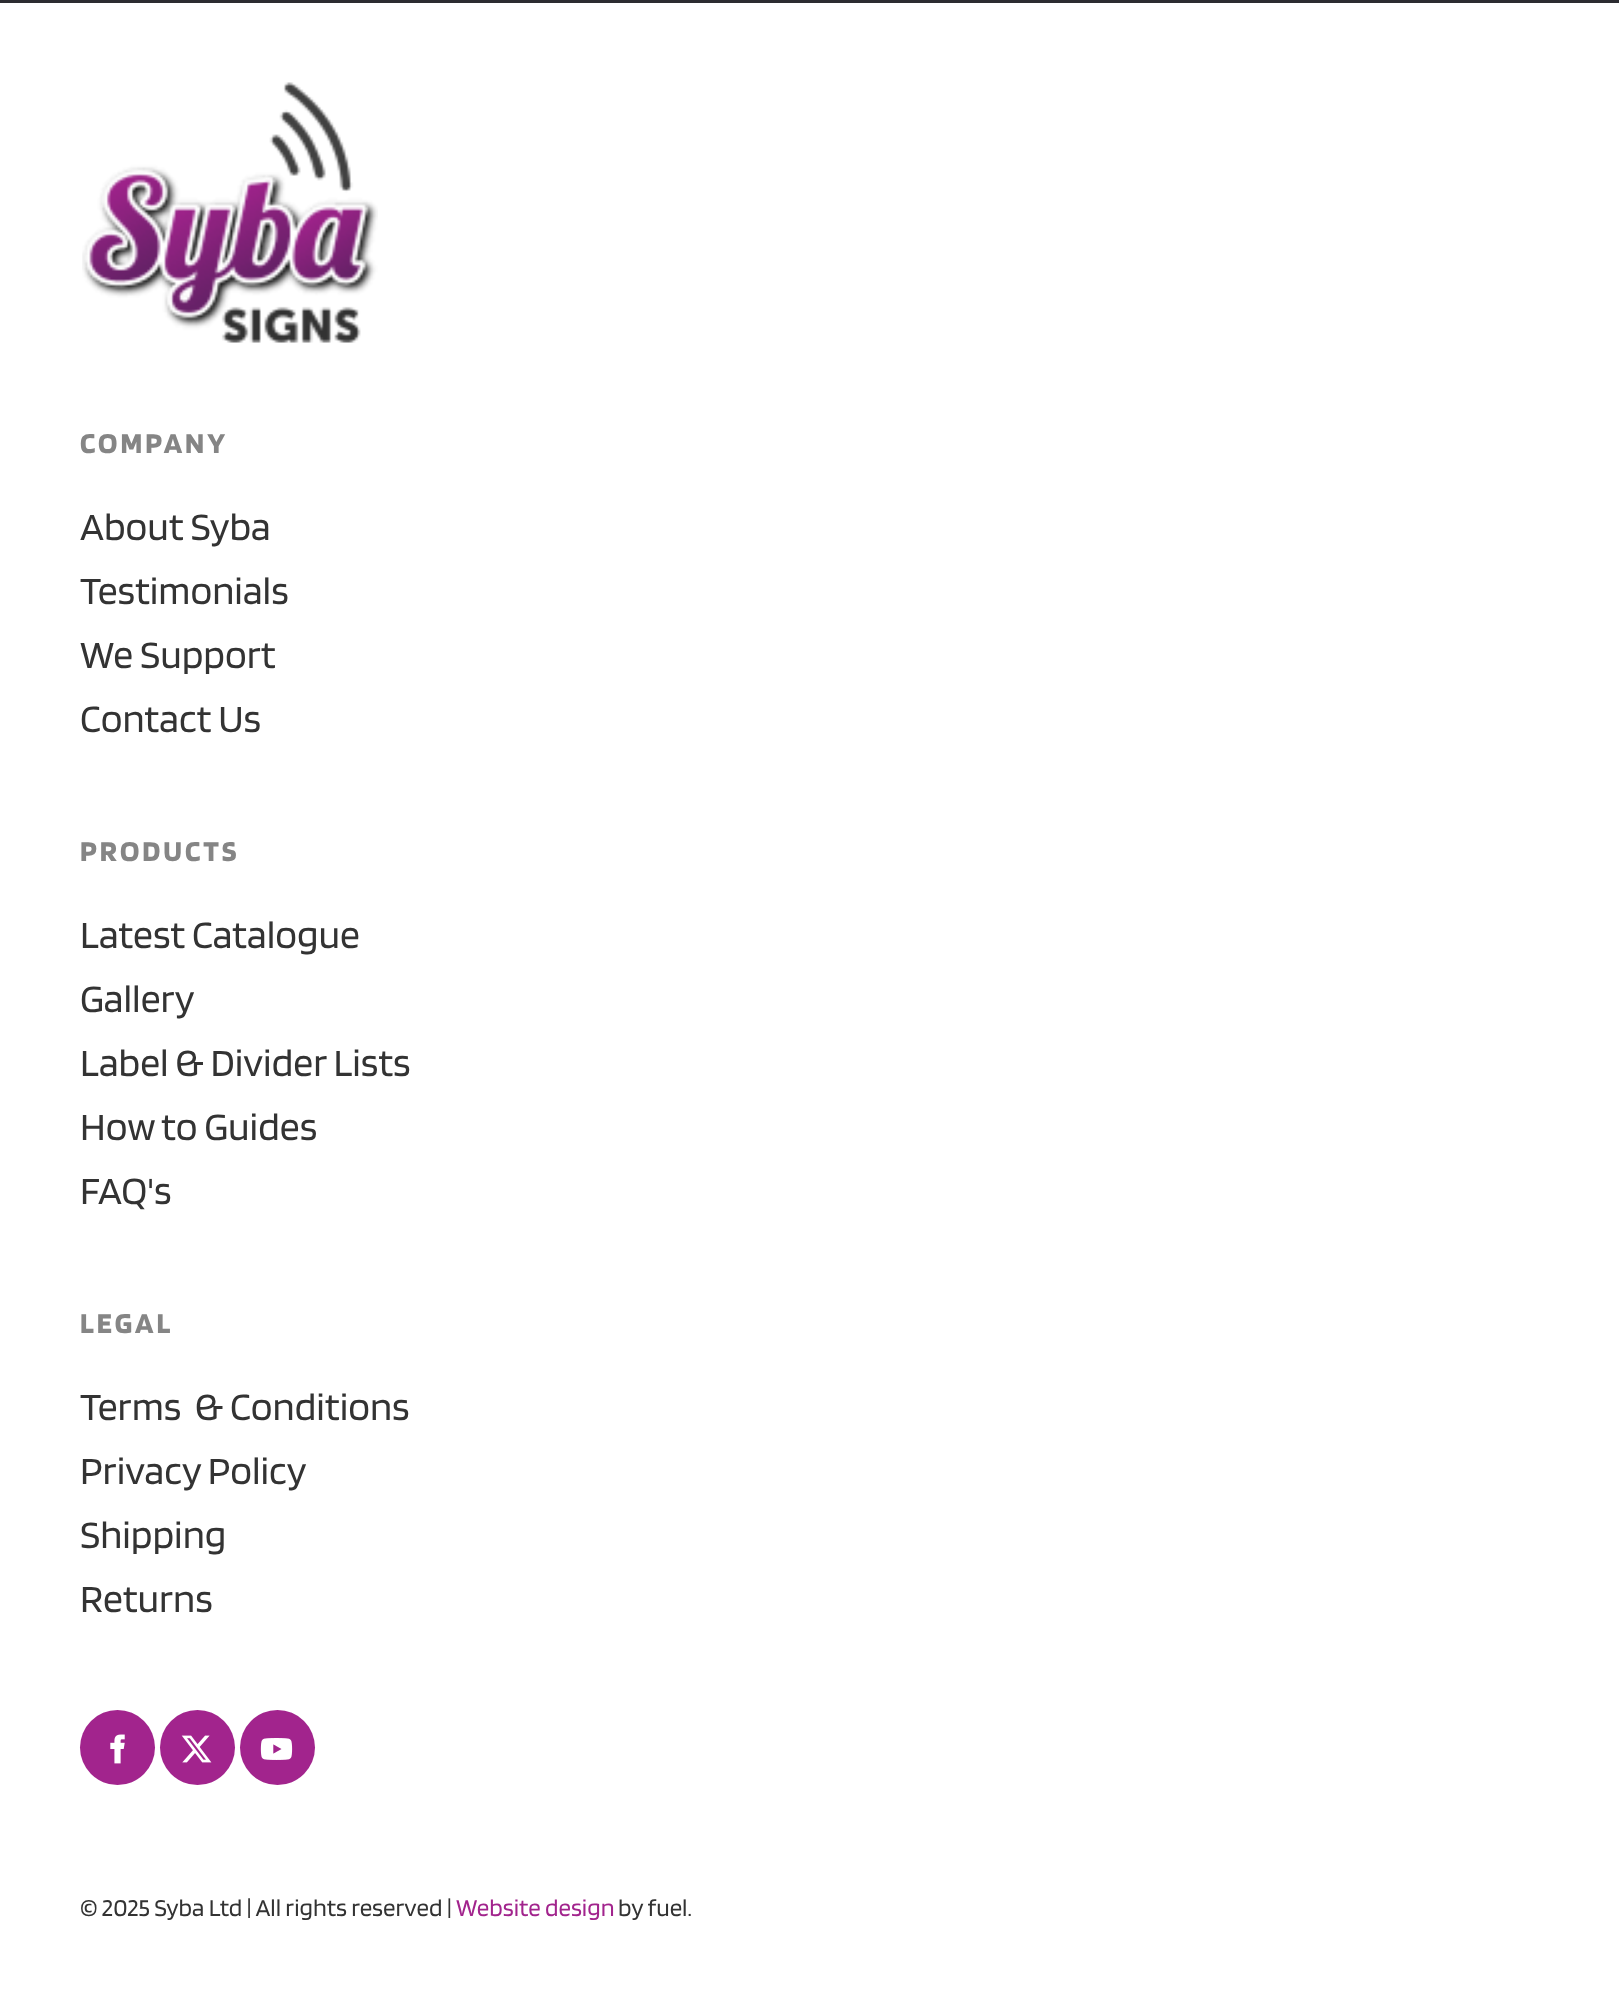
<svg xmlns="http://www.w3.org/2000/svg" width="1619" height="2004">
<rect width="100%" height="100%" fill="#fff"/>
<rect width="1619" height="3" fill="#2c2c31"/>
<image x="82" y="82" width="296" height="261" href="media/1.png"/>
<text x="80" y="453" style="font-family:Blinker;font-size:30px;font-weight:bold;letter-spacing:3px;fill:#858585">COMPANY</text>
<text x="80" y="540" style="font-family:Blinker;font-size:40px;fill:#333">About Syba</text>
<text x="80" y="604" style="font-family:Blinker;font-size:40px;fill:#333">Testimonials</text>
<text x="80" y="668" style="font-family:Blinker;font-size:40px;fill:#333">We Support</text>
<text x="80" y="732" style="font-family:Blinker;font-size:40px;fill:#333">Contact Us</text>
<text x="80" y="861" style="font-family:Blinker;font-size:30px;font-weight:bold;letter-spacing:3px;fill:#858585">PRODUCTS</text>
<text x="80" y="948" style="font-family:Blinker;font-size:40px;fill:#333">Latest Catalogue</text>
<text x="80" y="1012" style="font-family:Blinker;font-size:40px;fill:#333">Gallery</text>
<text x="80" y="1076" style="font-family:Blinker;font-size:40px;fill:#333">Label &amp; Divider Lists</text>
<text x="80" y="1140" style="font-family:Blinker;font-size:40px;fill:#333">How to Guides</text>
<text x="80" y="1204" style="font-family:Blinker;font-size:40px;fill:#333">FAQ's</text>
<text x="80" y="1333" style="font-family:Blinker;font-size:30px;font-weight:bold;letter-spacing:3px;fill:#858585">LEGAL</text>
<text x="80" y="1420" style="font-family:Blinker;font-size:40px;fill:#333" xml:space="preserve">Terms  &amp; Conditions</text>
<text x="80" y="1484" style="font-family:Blinker;font-size:40px;fill:#333">Privacy Policy</text>
<text x="80" y="1548" style="font-family:Blinker;font-size:40px;fill:#333">Shipping</text>
<text x="80" y="1612" style="font-family:Blinker;font-size:40px;fill:#333">Returns</text>
<circle cx="117.5" cy="1747.5" r="37.5" fill="#a2248d"/>
<image x="110" y="1734" width="15" height="30" href="media/2.png"/>
<circle cx="197.5" cy="1747.5" r="37.5" fill="#a2248d"/>
<image x="181" y="1735" width="31" height="28" href="media/3.png"/>
<circle cx="277.5" cy="1747.5" r="37.5" fill="#a2248d"/>
<image x="260" y="1738" width="33" height="22" href="media/4.png"/>
<text x="80" y="1916" style="font-family:Blinker;font-size:25px;fill:#333">© 2025 Syba Ltd | All rights reserved |</text>
<text x="456" y="1916" style="font-family:Blinker;font-size:25px;fill:#a2248d">Website design</text>
<text x="618" y="1916" style="font-family:Blinker;font-size:25px;fill:#333">by fuel.</text>
</svg>
